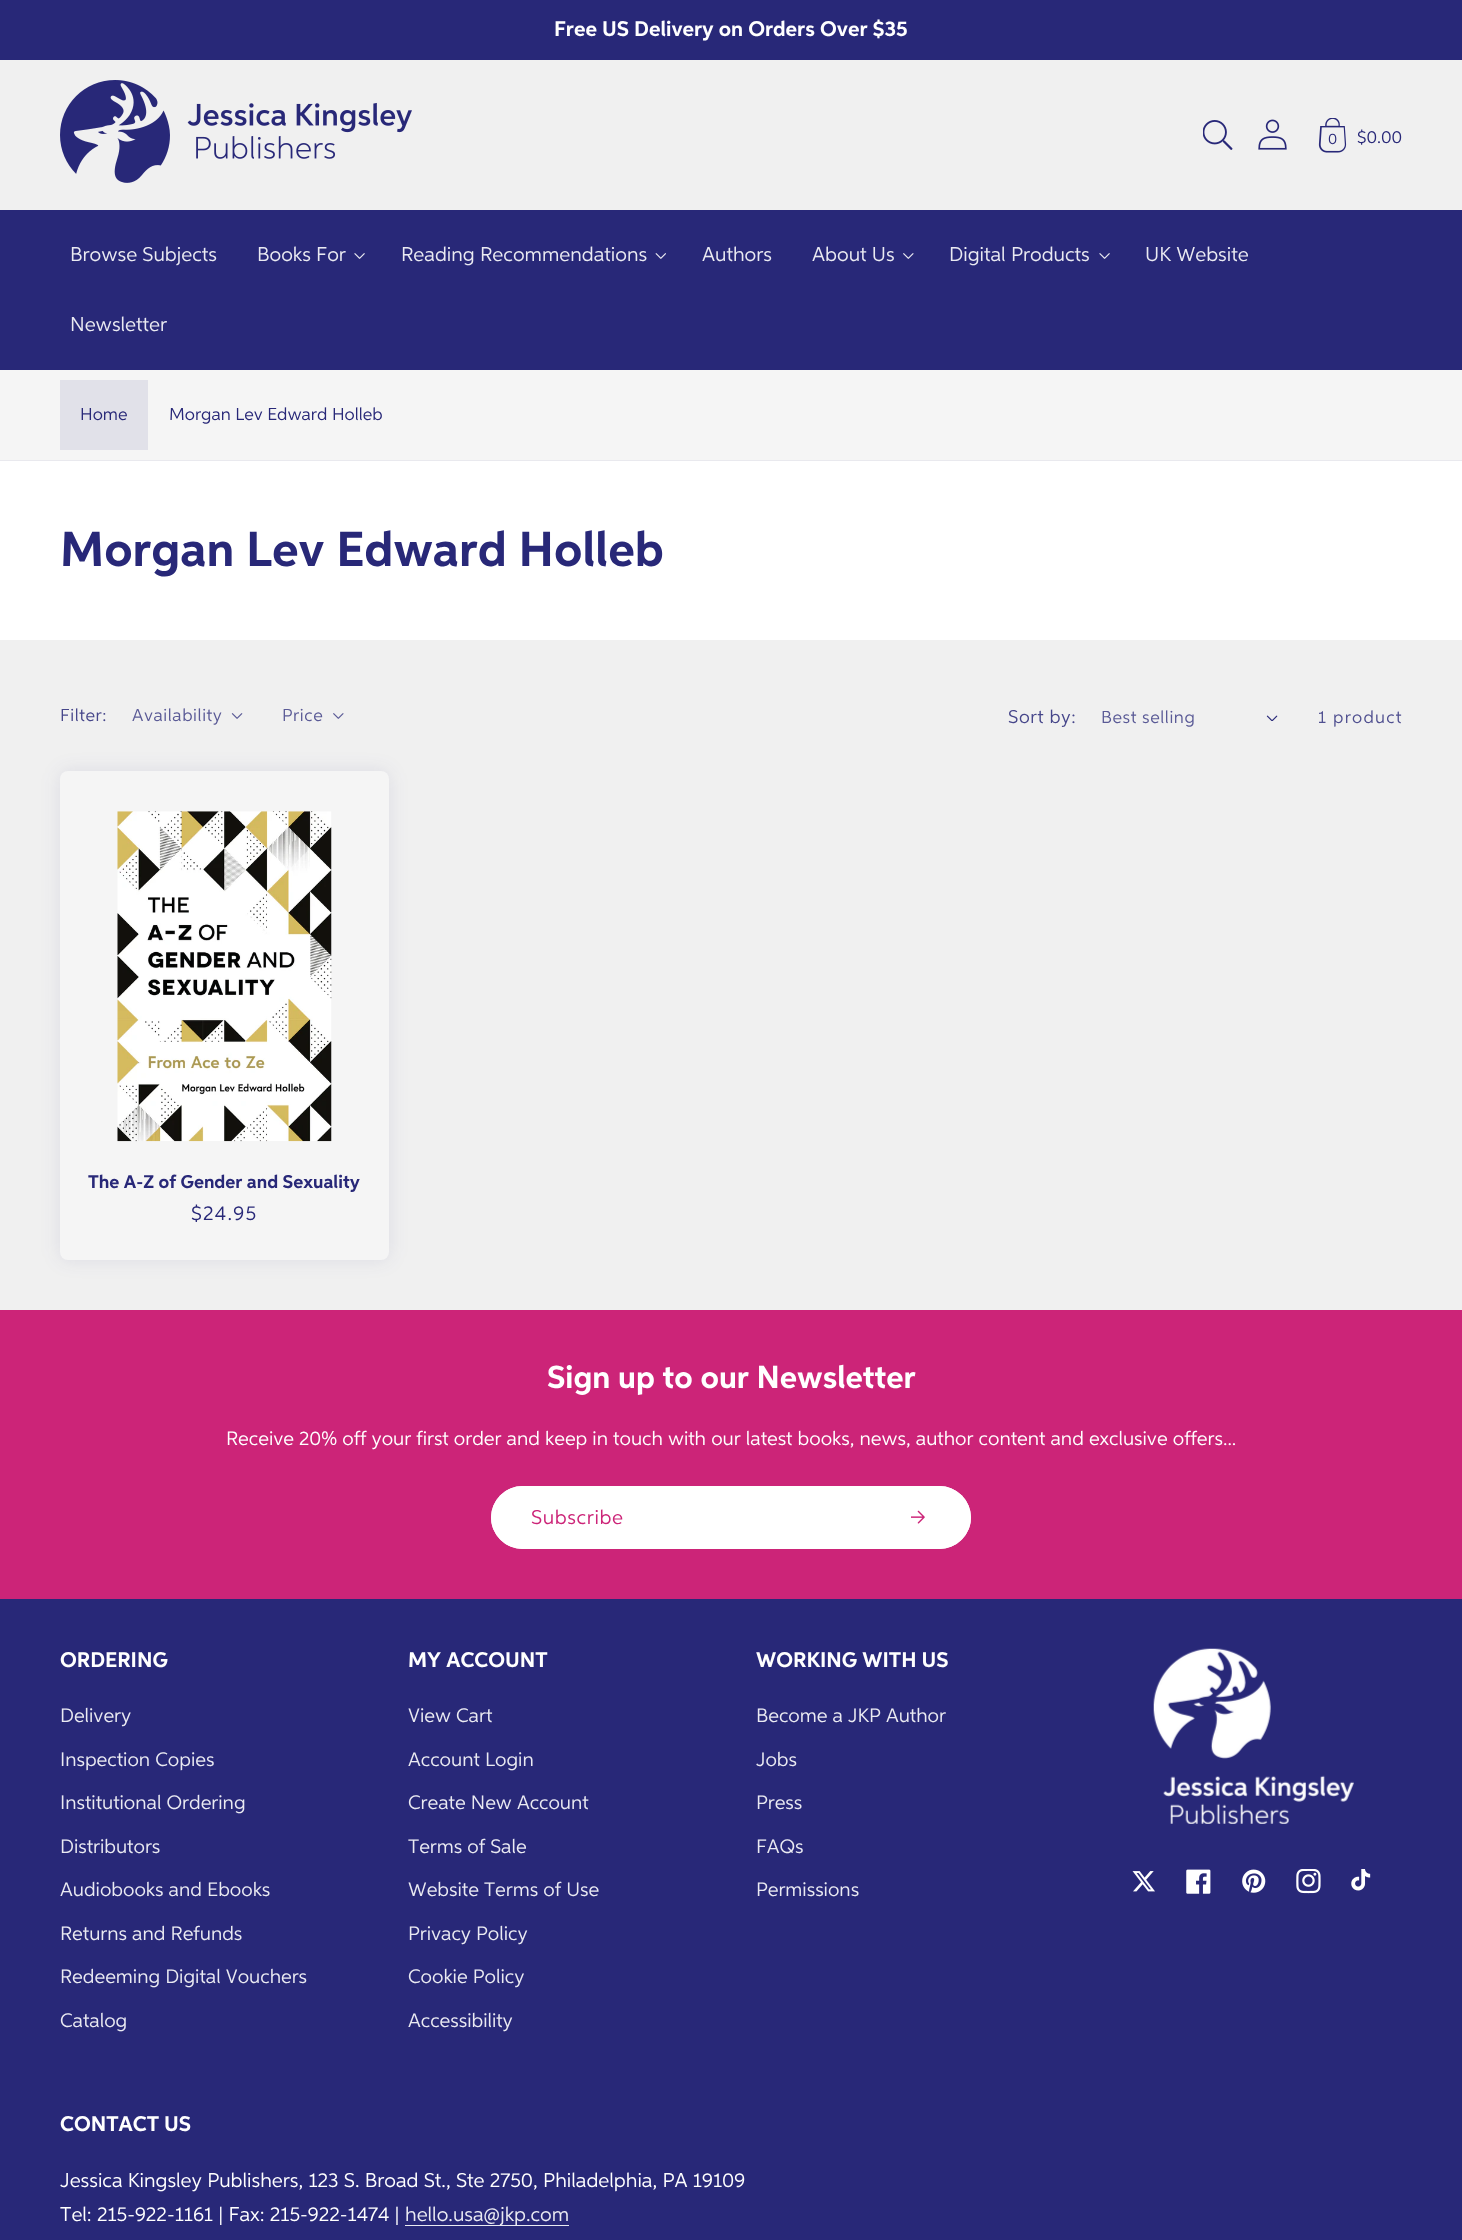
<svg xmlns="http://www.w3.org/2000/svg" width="1462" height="2240">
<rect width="100%" height="100%" fill="#f0f0f0"/>
<rect width="1462" height="60" fill="#282878"/>
<text x="554" y="36" style="font-family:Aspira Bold;font-size:21.25px;font-weight:bold;fill:#fff">Free US Delivery on Orders Over $35</text>
<image x="60" y="80" width="352" height="103" href="media/1.png"/>
<image x="1203" y="120" width="30" height="30" href="media/2.png"/>
<image x="1258" y="119" width="29" height="31" href="media/3.png"/>
<image x="1318" y="118" width="29" height="35" href="media/4.png"/>
<text x="1328" y="144" style="font-family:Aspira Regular;font-size:15px;fill:#282878">0</text>
<text x="1357" y="143" style="font-family:Aspira Regular;font-size:17.4px;fill:#282878">$0.00</text>
<rect y="210" width="1462" height="160" fill="#282878"/>
<text x="70" y="261" style="font-family:Aspira Regular;font-size:20px;fill:#eaeaf2">Browse Subjects</text>
<text x="257" y="261" style="font-family:Aspira Regular;font-size:20px;fill:#eaeaf2">Books For</text>
<image x="354" y="253" width="11" height="6" href="media/5.png"/>
<text x="401" y="261" style="font-family:Aspira Regular;font-size:20px;fill:#eaeaf2">Reading Recommendations</text>
<image x="655" y="253" width="11" height="6" href="media/6.png"/>
<text x="702" y="261" style="font-family:Aspira Regular;font-size:20px;fill:#eaeaf2">Authors</text>
<text x="812" y="261" style="font-family:Aspira Regular;font-size:20px;fill:#eaeaf2">About Us</text>
<image x="903" y="253" width="11" height="6" href="media/7.png"/>
<text x="949" y="261" style="font-family:Aspira Regular;font-size:20px;fill:#eaeaf2">Digital Products</text>
<image x="1099" y="253" width="11" height="6" href="media/5.png"/>
<text x="1145" y="261" style="font-family:Aspira Regular;font-size:20px;fill:#eaeaf2">UK Website</text>
<text x="70" y="331" style="font-family:Aspira Regular;font-size:20px;fill:#eaeaf2">Newsletter</text>
<rect y="370" width="1462" height="90" fill="#f5f5f5"/>
<rect y="460" width="1462" height="1" fill="#e9e9ee"/>
<rect x="60" y="380" width="88" height="70" fill="#e1e1e9"/>
<text x="80" y="420" style="font-family:Aspira Regular;font-size:17.4px;fill:#282878">Home</text>
<text x="169" y="420" style="font-family:Aspira Regular;font-size:17.4px;fill:#282878">Morgan Lev Edward Holleb</text>
<rect y="461" width="1462" height="179" fill="#fff"/>
<text x="60" y="566" style="font-family:Aspira Bold;font-size:49.1px;font-weight:bold;fill:#282878">Morgan Lev Edward Holleb</text>
<text x="60" y="721" style="font-family:Aspira Regular;font-size:17.4px;letter-spacing:0.6px;fill:#46468a">Filter:</text>
<text x="132" y="721" style="font-family:Aspira Regular;font-size:17.4px;letter-spacing:0.6px;fill:#5a5a96">Availability</text>
<image x="231" y="713" width="12" height="6" href="media/8.png"/>
<text x="282" y="721" style="font-family:Aspira Regular;font-size:17.4px;letter-spacing:0.6px;fill:#5a5a96">Price</text>
<image x="333" y="713" width="11" height="6" href="media/9.png"/>
<text x="1008" y="723" style="font-family:Aspira Regular;font-size:18.5px;letter-spacing:0.6px;fill:#46468a">Sort by:</text>
<text x="1101" y="723" style="font-family:Aspira Regular;font-size:17.4px;letter-spacing:0.6px;fill:#5a5a96">Best selling</text>
<image x="1266" y="715" width="12" height="6" href="media/10.png"/>
<text x="1318" y="723" style="font-family:Aspira Regular;font-size:17.4px;letter-spacing:1.25px;fill:#505090">1 product</text>
<rect x="60" y="771" width="329" height="489" rx="8" fill="#2828781a" filter="blur(9.5px)"/>
<rect x="60" y="771" width="329" height="489" rx="8" fill="#f5f5f5"/>
<image x="117" y="811" width="215" height="331" href="media/11.png"/>
<text x="88" y="1188" style="font-family:Aspira Bold;font-size:18.5px;font-weight:bold;fill:#282878">The A-Z of Gender and Sexuality</text>
<text x="191" y="1220" style="font-family:Aspira Regular;font-size:20px;letter-spacing:1.25px;fill:#282878">$24.95</text>
<rect y="1310" width="1462" height="289" fill="#cc2478"/>
<text x="547" y="1388" style="font-family:Aspira Bold;font-size:31.9px;font-weight:bold;fill:#fff">Sign up to our Newsletter</text>
<text x="226" y="1445" style="font-family:Aspira Regular;font-size:19.57px;fill:#fff">Receive 20% off your first order and keep in touch with our latest books, news, author content and exclusive offers...</text>
<rect x="491" y="1486" width="480" height="63" rx="31.5" fill="#fff"/>
<image x="911" y="1510" width="14" height="14" href="media/12.png"/>
<rect x="491.5" y="1486.5" width="479" height="62" rx="31" fill="none" stroke="#fff"/>
<text x="531" y="1524" style="font-family:Aspira Regular;font-size:20px;letter-spacing:0.6px;fill:#cc2478">Subscribe</text>
<rect y="1599" width="1462" height="641" fill="#282878"/>
<text x="60" y="1667" style="font-family:Aspira Bold;font-size:21.25px;font-weight:bold;fill:#fff">ORDERING</text>
<text x="60" y="1722" style="font-family:Aspira Regular;font-size:19.57px;fill:#eaeaf2">Delivery</text>
<text x="60" y="1766" style="font-family:Aspira Regular;font-size:19.57px;fill:#eaeaf2">Inspection Copies</text>
<text x="60" y="1809" style="font-family:Aspira Regular;font-size:19.57px;fill:#eaeaf2">Institutional Ordering</text>
<text x="60" y="1853" style="font-family:Aspira Regular;font-size:19.57px;fill:#eaeaf2">Distributors</text>
<text x="60" y="1896" style="font-family:Aspira Regular;font-size:19.57px;fill:#eaeaf2">Audiobooks and Ebooks</text>
<text x="60" y="1940" style="font-family:Aspira Regular;font-size:19.57px;fill:#eaeaf2">Returns and Refunds</text>
<text x="60" y="1983" style="font-family:Aspira Regular;font-size:19.57px;fill:#eaeaf2">Redeeming Digital Vouchers</text>
<text x="60" y="2027" style="font-family:Aspira Regular;font-size:19.57px;fill:#eaeaf2">Catalog</text>
<text x="408" y="1667" style="font-family:Aspira Bold;font-size:21.25px;font-weight:bold;fill:#fff">MY ACCOUNT</text>
<text x="408" y="1722" style="font-family:Aspira Regular;font-size:19.57px;fill:#eaeaf2">View Cart</text>
<text x="408" y="1766" style="font-family:Aspira Regular;font-size:19.57px;fill:#eaeaf2">Account Login</text>
<text x="408" y="1809" style="font-family:Aspira Regular;font-size:19.57px;fill:#eaeaf2">Create New Account</text>
<text x="408" y="1853" style="font-family:Aspira Regular;font-size:19.57px;fill:#eaeaf2">Terms of Sale</text>
<text x="408" y="1896" style="font-family:Aspira Regular;font-size:19.57px;fill:#eaeaf2">Website Terms of Use</text>
<text x="408" y="1940" style="font-family:Aspira Regular;font-size:19.57px;fill:#eaeaf2">Privacy Policy</text>
<text x="408" y="1983" style="font-family:Aspira Regular;font-size:19.57px;fill:#eaeaf2">Cookie Policy</text>
<text x="408" y="2027" style="font-family:Aspira Regular;font-size:19.57px;fill:#eaeaf2">Accessibility</text>
<text x="756" y="1667" style="font-family:Aspira Bold;font-size:21.25px;font-weight:bold;fill:#fff">WORKING WITH US</text>
<text x="756" y="1722" style="font-family:Aspira Regular;font-size:19.57px;fill:#eaeaf2">Become a JKP Author</text>
<text x="756" y="1766" style="font-family:Aspira Regular;font-size:19.57px;fill:#eaeaf2">Jobs</text>
<text x="756" y="1809" style="font-family:Aspira Regular;font-size:19.57px;fill:#eaeaf2">Press</text>
<text x="756" y="1853" style="font-family:Aspira Regular;font-size:19.57px;fill:#eaeaf2">FAQs</text>
<text x="756" y="1896" style="font-family:Aspira Regular;font-size:19.57px;fill:#eaeaf2">Permissions</text>
<image x="1153" y="1648" width="201" height="176" href="media/13.png"/>
<image x="1132" y="1871" width="23" height="21" href="media/14.png"/>
<image x="1186" y="1869" width="25" height="25" href="media/15.png"/>
<image x="1242" y="1869" width="24" height="24" href="media/16.png"/>
<image x="1296" y="1869" width="25" height="25" href="media/17.png"/>
<image x="1351" y="1869" width="20" height="22" href="media/18.png"/>
<text x="60" y="2131" style="font-family:Aspira Bold;font-size:21.25px;font-weight:bold;fill:#fff">CONTACT US</text>
<text x="60" y="2187" style="font-family:Aspira Regular;font-size:20px;fill:#fff">Jessica Kingsley Publishers, 123 S. Broad St., Ste 2750, Philadelphia, PA 19109</text>
<text x="60" y="2221" style="font-family:Aspira Regular;font-size:20px;fill:#fff">Tel: 215-922-1161 | Fax: 215-922-1474 |</text>
<rect x="405" y="2225" width="164" height="1" fill="#eaeaf2"/>
<text x="405" y="2221" style="font-family:Aspira Regular;font-size:20px;fill:#eaeaf2">hello.usa@jkp.com</text>
</svg>
